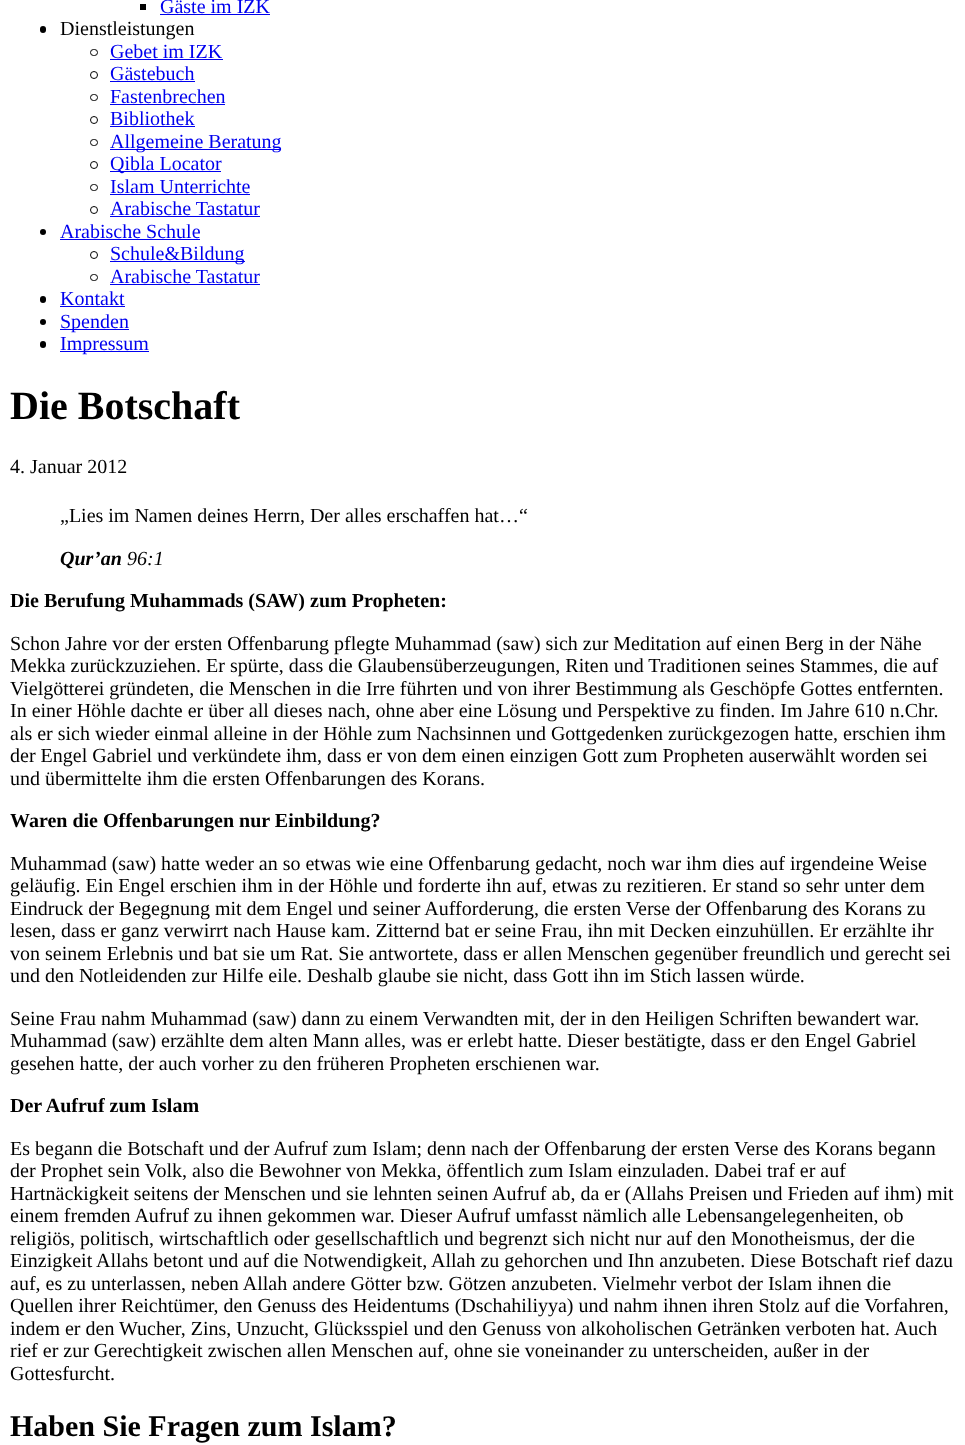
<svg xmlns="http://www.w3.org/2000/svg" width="965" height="1445">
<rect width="100%" height="100%" fill="#fff"/>
<rect x="140" y="4" width="6" height="6" fill="#000"/>
<text x="160" y="13" style="font-family:Liberation Serif;font-size:20px;fill:#00e">Gäste im IZK</text>
<rect x="160" y="14" width="110" height="1" fill="#00e"/>
<rect x="40" y="26" width="6" height="7" rx="3" fill="#000"/>
<text x="60" y="35" style="font-family:Liberation Serif;font-size:20px;fill:#000">Dienstleistungen</text>
<rect x="90.5" y="49.5" width="7" height="6" rx="3" fill="none" stroke="#000"/>
<text x="110" y="58" style="font-family:Liberation Serif;font-size:20px;fill:#00e">Gebet im IZK</text>
<rect x="110" y="59" width="113" height="1" fill="#00e"/>
<circle cx="94" cy="75" r="3.5" fill="none" stroke="#000"/>
<text x="110" y="80" style="font-family:Liberation Serif;font-size:20px;fill:#00e">Gästebuch</text>
<rect x="110" y="81" width="85" height="1" fill="#00e"/>
<rect x="90.5" y="94.5" width="7" height="6" rx="3" fill="none" stroke="#000"/>
<text x="110" y="103" style="font-family:Liberation Serif;font-size:20px;fill:#00e">Fastenbrechen</text>
<rect x="110" y="104" width="115" height="1" fill="#00e"/>
<circle cx="94" cy="120" r="3.5" fill="none" stroke="#000"/>
<text x="110" y="125" style="font-family:Liberation Serif;font-size:20px;fill:#00e">Bibliothek</text>
<rect x="110" y="126" width="85" height="1" fill="#00e"/>
<rect x="90.5" y="139.5" width="7" height="6" rx="3" fill="none" stroke="#000"/>
<rect x="110" y="149" width="171" height="1" fill="#00e"/>
<text x="110" y="148" style="font-family:Liberation Serif;font-size:20px;fill:#00e">Allgemeine Beratung</text>
<circle cx="94" cy="165" r="3.5" fill="none" stroke="#000"/>
<rect x="110" y="171" width="111" height="1" fill="#00e"/>
<text x="110" y="170" style="font-family:Liberation Serif;font-size:20px;fill:#00e">Qibla Locator</text>
<rect x="90.5" y="184.5" width="7" height="6" rx="3" fill="none" stroke="#000"/>
<text x="110" y="193" style="font-family:Liberation Serif;font-size:20px;fill:#00e">Islam Unterrichte</text>
<rect x="110" y="194" width="140" height="1" fill="#00e"/>
<circle cx="94" cy="210" r="3.5" fill="none" stroke="#000"/>
<text x="110" y="215" style="font-family:Liberation Serif;font-size:20px;fill:#00e">Arabische Tastatur</text>
<rect x="110" y="216" width="150" height="1" fill="#00e"/>
<circle cx="43" cy="232" r="3" fill="#000"/>
<text x="60" y="238" style="font-family:Liberation Serif;font-size:20px;fill:#00e">Arabische Schule</text>
<rect x="60" y="239" width="140" height="1" fill="#00e"/>
<circle cx="94" cy="255" r="3.5" fill="none" stroke="#000"/>
<rect x="110" y="261" width="135" height="1" fill="#00e"/>
<text x="110" y="260" style="font-family:Liberation Serif;font-size:20px;fill:#00e">Schule&amp;Bildung</text>
<rect x="90.5" y="274.5" width="7" height="6" rx="3" fill="none" stroke="#000"/>
<text x="110" y="283" style="font-family:Liberation Serif;font-size:20px;fill:#00e">Arabische Tastatur</text>
<rect x="110" y="284" width="150" height="1" fill="#00e"/>
<rect x="40" y="296" width="6" height="7" rx="3" fill="#000"/>
<text x="60" y="305" style="font-family:Liberation Serif;font-size:20px;fill:#00e">Kontakt</text>
<rect x="60" y="306" width="65" height="1" fill="#00e"/>
<circle cx="43" cy="322" r="3" fill="#000"/>
<rect x="60" y="329" width="69" height="1" fill="#00e"/>
<text x="60" y="328" style="font-family:Liberation Serif;font-size:20px;fill:#00e">Spenden</text>
<rect x="40" y="341" width="6" height="7" rx="3" fill="#000"/>
<rect x="60" y="351" width="89" height="1" fill="#00e"/>
<text x="60" y="350" style="font-family:Liberation Serif;font-size:20px;fill:#00e">Impressum</text>
<text x="10" y="419" style="font-family:Liberation Serif;font-size:40px;font-weight:bold;fill:#000">Die Botschaft</text>
<text x="10" y="473" style="font-family:Liberation Serif;font-size:20px;fill:#000">4. Januar 2012</text>
<text x="60" y="522" style="font-family:Liberation Serif;font-size:20px;fill:#000">„Lies im Namen deines Herrn, Der alles erschaffen hat…“</text>
<text x="60" y="565" style="font-family:Liberation Serif;font-size:20px;font-weight:bold;font-style:italic;fill:#000">Qur’an</text>
<text x="127" y="565" style="font-family:Liberation Serif;font-size:20px;font-style:italic;fill:#000">96:1</text>
<text x="10" y="607" style="font-family:Liberation Serif;font-size:20px;font-weight:bold;fill:#000">Die Berufung Muhammads (SAW) zum Propheten:</text>
<text x="10" y="650" style="font-family:Liberation Serif;font-size:20px;fill:#000">Schon Jahre vor der ersten Offenbarung pflegte Muhammad (saw) sich zur Meditation auf einen Berg in der Nähe</text>
<text x="10" y="672" style="font-family:Liberation Serif;font-size:20px;fill:#000">Mekka zurückzuziehen. Er spürte, dass die Glaubensüberzeugungen, Riten und Traditionen seines Stammes, die auf</text>
<text x="10" y="695" style="font-family:Liberation Serif;font-size:20px;fill:#000">Vielgötterei gründeten, die Menschen in die Irre führten und von ihrer Bestimmung als Geschöpfe Gottes entfernten.</text>
<text x="10" y="717" style="font-family:Liberation Serif;font-size:20px;fill:#000">In einer Höhle dachte er über all dieses nach, ohne aber eine Lösung und Perspektive zu finden. Im Jahre 610 n.Chr.</text>
<text x="10" y="740" style="font-family:Liberation Serif;font-size:20px;fill:#000">als er sich wieder einmal alleine in der Höhle zum Nachsinnen und Gottgedenken zurückgezogen hatte, erschien ihm</text>
<text x="10" y="762" style="font-family:Liberation Serif;font-size:20px;fill:#000">der Engel Gabriel und verkündete ihm, dass er von dem einen einzigen Gott zum Propheten auserwählt worden sei</text>
<text x="10" y="785" style="font-family:Liberation Serif;font-size:20px;fill:#000">und übermittelte ihm die ersten Offenbarungen des Korans.</text>
<text x="10" y="827" style="font-family:Liberation Serif;font-size:20px;font-weight:bold;fill:#000">Waren die Offenbarungen nur Einbildung?</text>
<text x="10" y="870" style="font-family:Liberation Serif;font-size:20px;fill:#000">Muhammad (saw) hatte weder an so etwas wie eine Offenbarung gedacht, noch war ihm dies auf irgendeine Weise</text>
<text x="10" y="892" style="font-family:Liberation Serif;font-size:20px;fill:#000">geläufig. Ein Engel erschien ihm in der Höhle und forderte ihn auf, etwas zu rezitieren. Er stand so sehr unter dem</text>
<text x="10" y="915" style="font-family:Liberation Serif;font-size:20px;fill:#000">Eindruck der Begegnung mit dem Engel und seiner Aufforderung, die ersten Verse der Offenbarung des Korans zu</text>
<text x="10" y="937" style="font-family:Liberation Serif;font-size:20px;fill:#000">lesen, dass er ganz verwirrt nach Hause kam. Zitternd bat er seine Frau, ihn mit Decken einzuhüllen. Er erzählte ihr</text>
<text x="10" y="960" style="font-family:Liberation Serif;font-size:20px;fill:#000">von seinem Erlebnis und bat sie um Rat. Sie antwortete, dass er allen Menschen gegenüber freundlich und gerecht sei</text>
<text x="10" y="982" style="font-family:Liberation Serif;font-size:20px;fill:#000">und den Notleidenden zur Hilfe eile. Deshalb glaube sie nicht, dass Gott ihn im Stich lassen würde.</text>
<text x="10" y="1025" style="font-family:Liberation Serif;font-size:20px;fill:#000">Seine Frau nahm Muhammad (saw) dann zu einem Verwandten mit, der in den Heiligen Schriften bewandert war.</text>
<text x="10" y="1047" style="font-family:Liberation Serif;font-size:20px;fill:#000">Muhammad (saw) erzählte dem alten Mann alles, was er erlebt hatte. Dieser bestätigte, dass er den Engel Gabriel</text>
<text x="10" y="1070" style="font-family:Liberation Serif;font-size:20px;fill:#000">gesehen hatte, der auch vorher zu den früheren Propheten erschienen war.</text>
<text x="10" y="1112" style="font-family:Liberation Serif;font-size:20px;font-weight:bold;fill:#000">Der Aufruf zum Islam</text>
<text x="10" y="1155" style="font-family:Liberation Serif;font-size:20px;fill:#000">Es begann die Botschaft und der Aufruf zum Islam; denn nach der Offenbarung der ersten Verse des Korans begann</text>
<text x="10" y="1177" style="font-family:Liberation Serif;font-size:20px;fill:#000">der Prophet sein Volk, also die Bewohner von Mekka, öffentlich zum Islam einzuladen. Dabei traf er auf</text>
<text x="10" y="1200" style="font-family:Liberation Serif;font-size:20px;fill:#000">Hartnäckigkeit seitens der Menschen und sie lehnten seinen Aufruf ab, da er (Allahs Preisen und Frieden auf ihm) mit</text>
<text x="10" y="1222" style="font-family:Liberation Serif;font-size:20px;fill:#000">einem fremden Aufruf zu ihnen gekommen war. Dieser Aufruf umfasst nämlich alle Lebensangelegenheiten, ob</text>
<text x="10" y="1245" style="font-family:Liberation Serif;font-size:20px;fill:#000">religiös, politisch, wirtschaftlich oder gesellschaftlich und begrenzt sich nicht nur auf den Monotheismus, der die</text>
<text x="10" y="1267" style="font-family:Liberation Serif;font-size:20px;fill:#000">Einzigkeit Allahs betont und auf die Notwendigkeit, Allah zu gehorchen und Ihn anzubeten. Diese Botschaft rief dazu</text>
<text x="10" y="1290" style="font-family:Liberation Serif;font-size:20px;fill:#000">auf, es zu unterlassen, neben Allah andere Götter bzw. Götzen anzubeten. Vielmehr verbot der Islam ihnen die</text>
<text x="10" y="1312" style="font-family:Liberation Serif;font-size:20px;fill:#000">Quellen ihrer Reichtümer, den Genuss des Heidentums (Dschahiliyya) und nahm ihnen ihren Stolz auf die Vorfahren,</text>
<text x="10" y="1335" style="font-family:Liberation Serif;font-size:20px;fill:#000">indem er den Wucher, Zins, Unzucht, Glücksspiel und den Genuss von alkoholischen Getränken verboten hat. Auch</text>
<text x="10" y="1357" style="font-family:Liberation Serif;font-size:20px;fill:#000">rief er zur Gerechtigkeit zwischen allen Menschen auf, ohne sie voneinander zu unterscheiden, außer in der</text>
<text x="10" y="1380" style="font-family:Liberation Serif;font-size:20px;fill:#000">Gottesfurcht.</text>
<text x="10" y="1436" style="font-family:Liberation Serif;font-size:30px;font-weight:bold;fill:#000">Haben Sie Fragen zum Islam?</text>
</svg>
